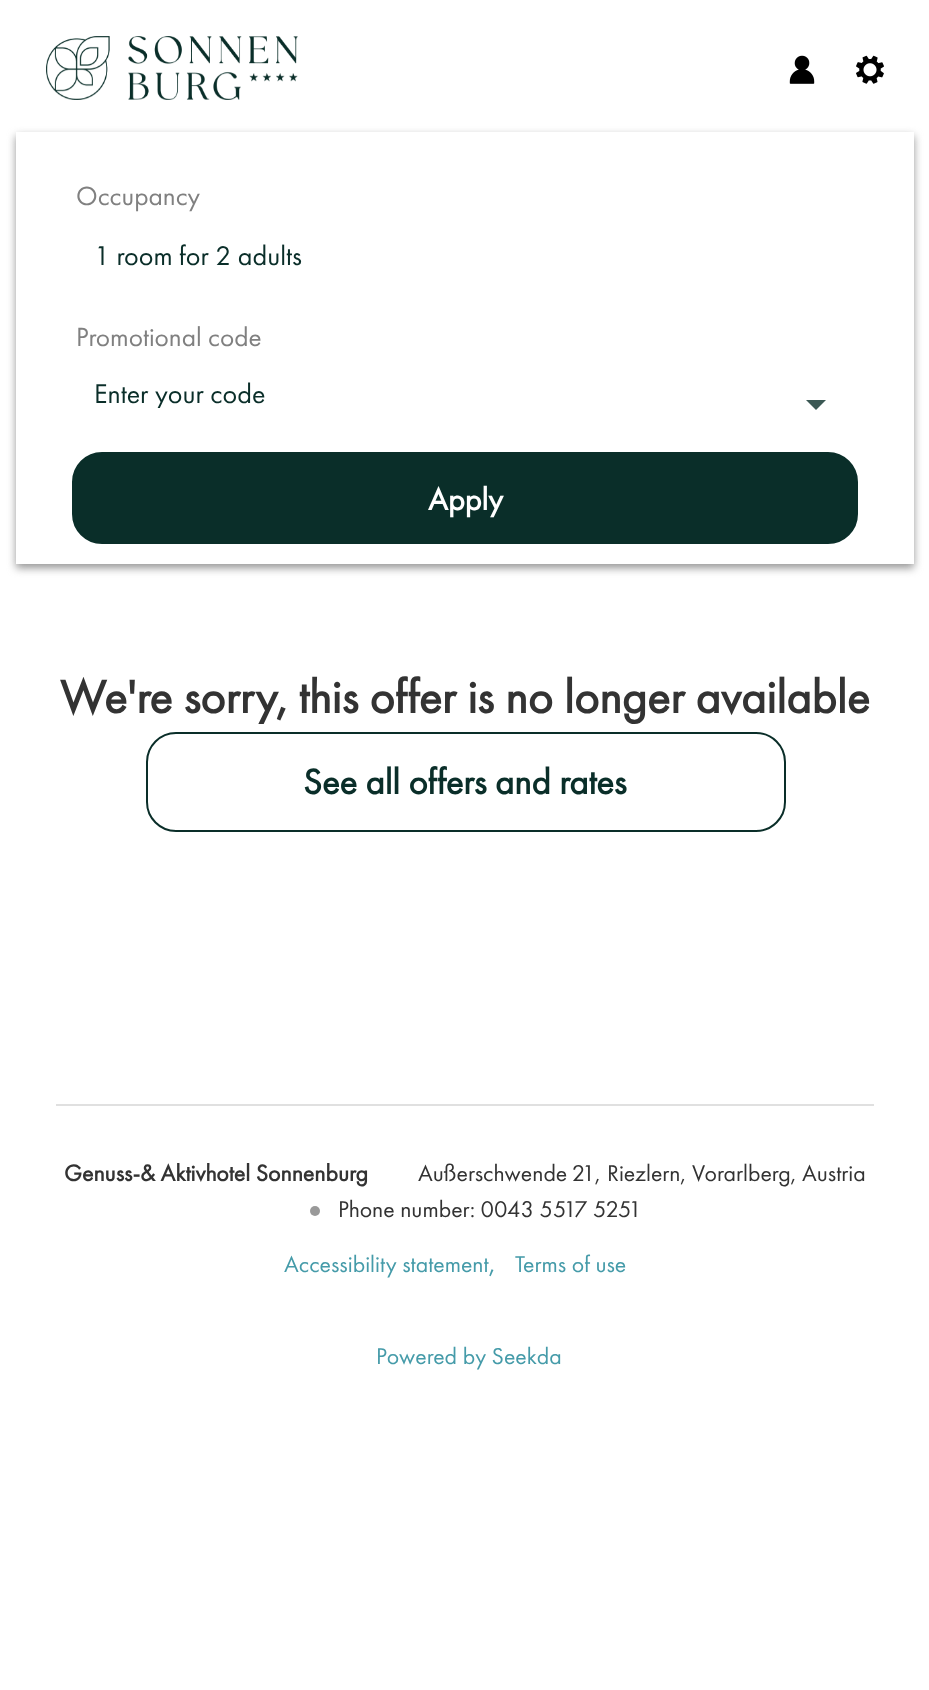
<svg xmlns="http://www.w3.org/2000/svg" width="929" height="1690">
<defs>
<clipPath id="clip1"><path d="M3 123h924v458h-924zm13 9h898v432h-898z" clip-rule="evenodd"/></clipPath>
<clipPath id="clip2"><rect x="94" y="380" width="172" height="28"/></clipPath>
</defs>
<rect width="100%" height="100%" fill="#fff"/>
<image x="46" y="36" width="252" height="64" href="media/1.png"/>
<image x="789" y="55" width="26" height="29" href="media/2.png"/>
<image x="856" y="55" width="28" height="29" href="media/3.png"/>
<g clip-path="url(#clip1)">
<rect x="16" y="136" width="898" height="432" fill="#959595" filter="blur(4px)"/>
</g>
<text x="76" y="205" style="font-family:Futura PT;font-size:27.25px;fill:#808080">Occupancy</text>
<text x="94" y="265" style="font-family:Futura PT;font-size:28px;fill:#0a2e29">1 room for 2 adults</text>
<text x="76" y="346" style="font-family:Futura PT;font-size:27.25px;fill:#808080">Promotional code</text>
<g clip-path="url(#clip2)">
<text x="94" y="403" style="font-family:Futura PT;font-size:28px;fill:#0a2e29">Enter your code</text>
</g>
<path d="M806 400h20l-10 10z" fill="#3b5854"/>
<rect x="73" y="453" width="784" height="90" rx="29" fill="#0a2e29" stroke="#0a2e29" stroke-width="2"/>
<text x="428" y="510" style="font-family:Futura PT;font-size:32px;font-weight:bold;fill:#fff">Apply</text>
<text x="60" y="713" style="font-family:Futura PT;font-size:48px;font-weight:bold;fill:#333">We're sorry, this offer is no longer available</text>
<rect x="147" y="733" width="638" height="98" rx="29" fill="none" stroke="#0a2e29" stroke-width="2"/>
<text x="303" y="794" style="font-family:Futura PT;font-size:36.5px;font-weight:bold;fill:#0a2e29">See all offers and rates</text>
<rect x="56" y="1104" width="818" height="2" fill="#e0e0e0"/>
<text x="64" y="1181" style="font-family:Futura PT;font-size:23.75px;font-weight:bold;fill:#333">Genuss-&amp; Aktivhotel Sonnenburg</text>
<text x="418" y="1181" word-spacing="-1" style="font-family:Futura PT;font-size:23.75px;fill:#333">Außerschwende 21</text>
<text x="595" y="1181" style="font-family:Futura PT;font-size:23.75px;fill:#333">,</text>
<text x="607" y="1181" style="font-family:Futura PT;font-size:23.75px;fill:#333">Riezlern,</text>
<text x="692" y="1181" style="font-family:Futura PT;font-size:23.75px;fill:#333">Vorarlberg,</text>
<text x="802" y="1181" style="font-family:Futura PT;font-size:23.75px;fill:#333">Austria</text>
<circle cx="315" cy="1211" r="5" fill="#999"/>
<text x="338" y="1217" style="font-family:Futura PT;font-size:23.75px;fill:#333">Phone number: 0043 5517 5251</text>
<text x="284" y="1272" style="font-family:Futura PT;font-size:23.75px;fill:#459ba9">Accessibility statement</text>
<text x="489" y="1272" style="font-family:Futura PT;font-size:28px;fill:#459ba9">,</text>
<text x="515" y="1272" style="font-family:Futura PT;font-size:23.75px;fill:#459ba9">Terms of use</text>
<text x="376" y="1364" style="font-family:Futura PT;font-size:23.75px;fill:#459ba9">Powered by Seekda</text>
</svg>
